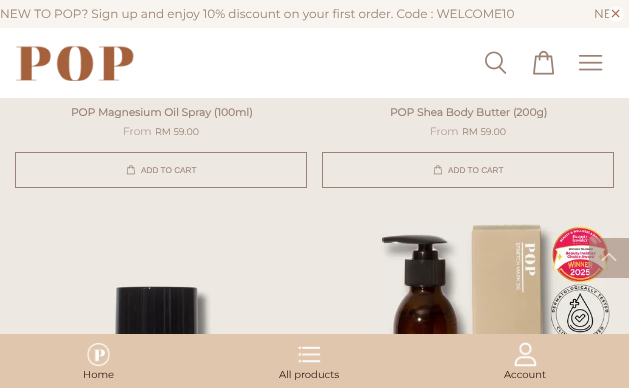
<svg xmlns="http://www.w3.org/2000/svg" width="629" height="388">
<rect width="100%" height="100%" fill="#ede8e2"/>
<rect width="629" height="28" fill="#f8f4ef"/>
<text x="0" y="18" style="font-family:Montserrat;font-size:12px;font-weight:100;fill:#9c8275">NEW TO POP? Sign up and enjoy 10% discount on your first order. Code : WELCOME10</text>
<text x="594" y="18" style="font-family:Montserrat;font-size:12px;font-weight:100;fill:#9c8275">NE</text>
<circle cx="616" cy="14" r="8" fill="#ffffffc7"/>
<image x="611" y="9" width="9" height="9" href="media/1.png"/>
<rect y="28" width="629" height="70" fill="#fff"/>
<image x="16" y="45" width="118" height="37" href="media/2.png"/>
<image x="485" y="51" width="22" height="23" href="media/3.png"/>
<image x="533" y="50" width="22" height="25" href="media/4.png"/>
<image x="578" y="55" width="25" height="16" href="media/5.png"/>
<text x="71" y="116" style="font-family:Montserrat;font-size:10.6px;font-weight:bold;fill:#9c8275">POP Magnesium Oil Spray (100ml)</text>
<text x="123" y="135" style="font-family:Montserrat;font-size:10.6px;font-weight:100;fill:#b19d93">From</text>
<text x="155" y="135" style="font-family:Montserrat;font-size:9.5px;font-weight:100;fill:#9c8275">RM 59.00</text>
<rect x="15.5" y="152.5" width="291" height="35" fill="none" stroke="#9c8275"/>
<image x="126" y="165" width="9" height="10" href="media/6.png"/>
<text x="141" y="173" style="font-family:Liberation Sans;font-size:8.25px;fill:#9c8275">ADD TO CART</text>
<text x="390" y="116" style="font-family:Montserrat;font-size:10.6px;font-weight:bold;fill:#9c8275">POP Shea Body Butter (200g)</text>
<text x="430" y="135" style="font-family:Montserrat;font-size:10.6px;font-weight:100;fill:#b19d93">From</text>
<text x="462" y="135" style="font-family:Montserrat;font-size:9.5px;font-weight:100;fill:#9c8275">RM 59.00</text>
<rect x="322.5" y="152.5" width="291" height="35" fill="none" stroke="#9c8275"/>
<image x="433" y="165" width="9" height="10" href="media/6.png"/>
<text x="448" y="173" style="font-family:Liberation Sans;font-size:8.25px;fill:#9c8275">ADD TO CART</text>
<image x="115" y="286" width="96" height="48" href="media/7.png"/>
<image x="380" y="224" width="231" height="110" href="media/8.png"/>
<rect x="589" y="238" width="40" height="40" fill="#9c827599"/>
<image x="601" y="253" width="16" height="8" href="media/9.png"/>
<rect y="334" width="629" height="54" fill="#e0c6ad"/>
<image x="87" y="343" width="23" height="24" href="media/10.png"/>
<text x="83" y="378" style="font-family:Montserrat;font-size:10px;font-weight:100;fill:#2d170c">Home</text>
<image x="298" y="346" width="23" height="17" href="media/11.png"/>
<text x="279" y="378" style="font-family:Montserrat;font-size:10px;font-weight:100;fill:#2d170c">All products</text>
<image x="514" y="342" width="23" height="25" href="media/12.png"/>
<text x="504" y="378" style="font-family:Montserrat;font-size:10px;font-weight:100;fill:#2d170c">Account</text>
</svg>
